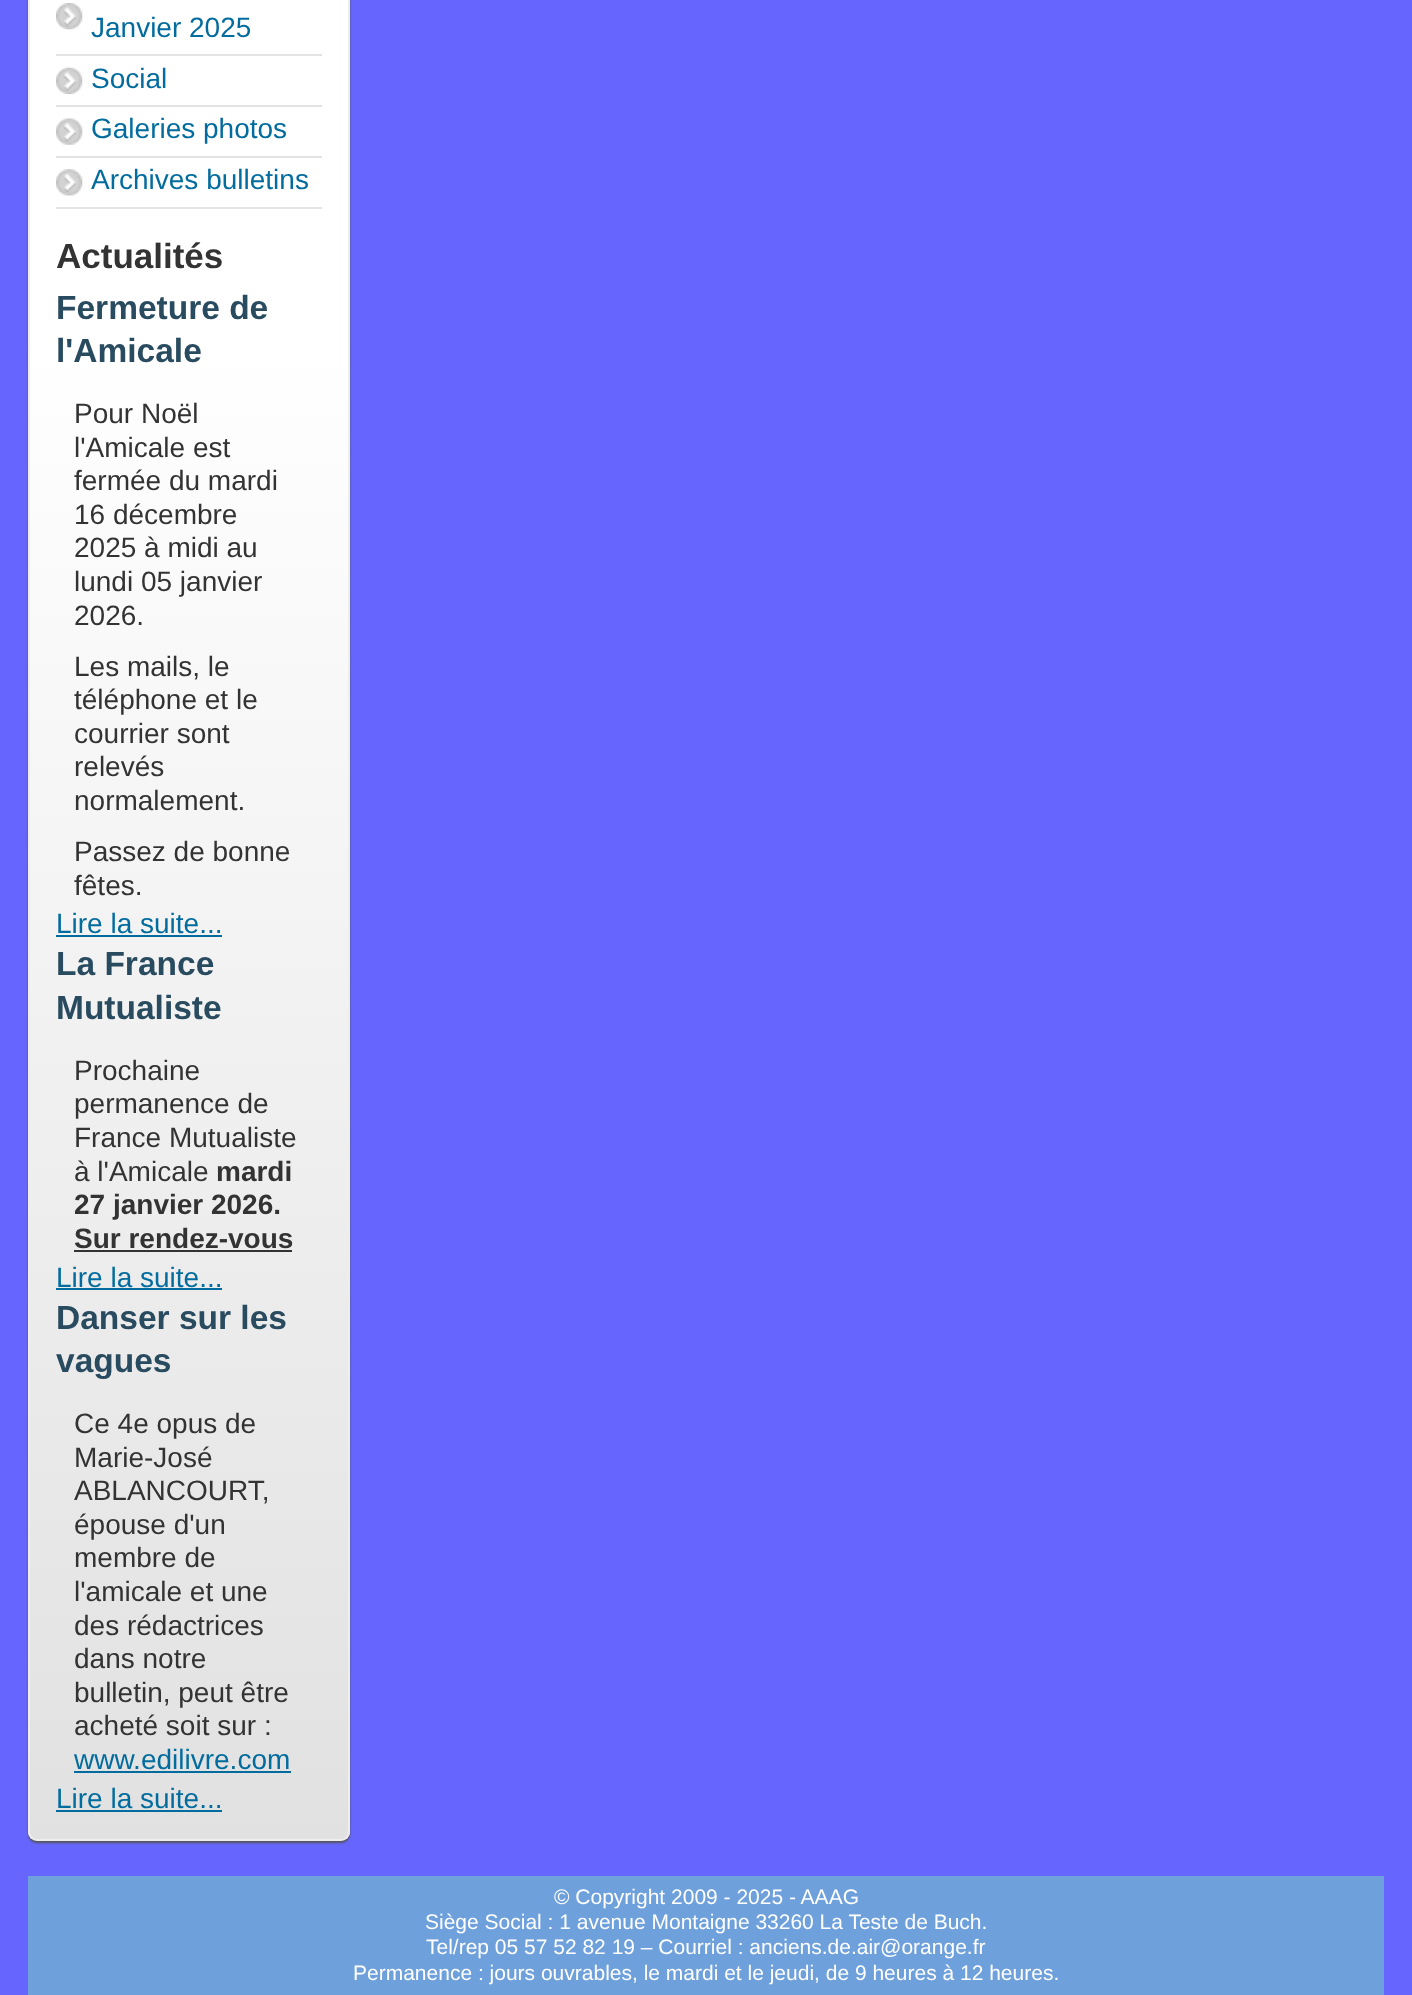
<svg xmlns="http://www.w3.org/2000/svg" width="1412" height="1995">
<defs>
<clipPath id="clip1"><rect x="28" y="-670" width="322" height="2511" rx="9"/></clipPath>
<linearGradient id="g1" gradientUnits="userSpaceOnUse" x1="30" y1="-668" x2="30" y2="1839"><stop offset="0" stop-color="#fff"/><stop offset="0.4" stop-color="#fff"/><stop offset="1" stop-color="#e1e1e1"/></linearGradient>
</defs>
<rect width="100%" height="100%" fill="#66f"/>
<rect x="28" y="-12" width="322" height="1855" rx="9" fill="#545454" filter="blur(1px)"/>
<g clip-path="url(#clip1)">
<rect x="28" width="322" height="1839" fill="url(#g1)"/>
</g>
<rect x="29" y="-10" width="320" height="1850" rx="8" fill="none" stroke="#eee" stroke-width="2"/>
<image x="56" y="3" width="27" height="27" href="media/1.png"/>
<rect x="56" y="54" width="266" height="2" fill="#e3e3e3"/>
<text x="91" y="37" style="font-family:Liberation Sans;font-size:28px;fill:#036c9e">Janvier 2025</text>
<image x="56" y="67" width="27" height="27" href="media/2.png"/>
<rect x="56" y="105" width="266" height="2" fill="#e3e3e3"/>
<text x="91" y="88" style="font-family:Liberation Sans;font-size:28px;fill:#036c9e">Social</text>
<image x="56" y="118" width="27" height="27" href="media/3.png"/>
<rect x="56" y="156" width="266" height="2" fill="#e3e3e3"/>
<text x="91" y="138" style="font-family:Liberation Sans;font-size:28px;fill:#036c9e">Galeries photos</text>
<image x="56" y="169" width="27" height="27" href="media/4.png"/>
<rect x="56" y="207" width="266" height="2" fill="#e3e3e3"/>
<text x="91" y="189" style="font-family:Liberation Sans;font-size:28px;fill:#036c9e">Archives bulletins</text>
<text x="56" y="268" style="font-family:Liberation Sans;font-size:35px;font-weight:bold;fill:#333">Actualités</text>
<text x="56" y="319" style="font-family:Liberation Sans;font-size:33.5px;font-weight:bold;fill:#294b5f">Fermeture de</text>
<text x="56" y="362" style="font-family:Liberation Sans;font-size:33.5px;font-weight:bold;fill:#294b5f">l'Amicale</text>
<text x="74" y="423" style="font-family:Liberation Sans;font-size:28px;fill:#333">Pour Noël</text>
<text x="74" y="457" style="font-family:Liberation Sans;font-size:28px;fill:#333">l'Amicale est</text>
<text x="74" y="490" style="font-family:Liberation Sans;font-size:28px;fill:#333">fermée du mardi</text>
<text x="74" y="524" style="font-family:Liberation Sans;font-size:28px;fill:#333">16 décembre</text>
<text x="74" y="557" style="font-family:Liberation Sans;font-size:28px;fill:#333">2025 à midi au</text>
<text x="74" y="591" style="font-family:Liberation Sans;font-size:28px;fill:#333">lundi 05 janvier</text>
<text x="74" y="625" style="font-family:Liberation Sans;font-size:28px;fill:#333">2026.</text>
<text x="74" y="676" style="font-family:Liberation Sans;font-size:28px;fill:#333">Les mails, le</text>
<text x="74" y="709" style="font-family:Liberation Sans;font-size:28px;fill:#333">téléphone et le</text>
<text x="74" y="743" style="font-family:Liberation Sans;font-size:28px;fill:#333">courrier sont</text>
<text x="74" y="776" style="font-family:Liberation Sans;font-size:28px;fill:#333">relevés</text>
<text x="74" y="810" style="font-family:Liberation Sans;font-size:28px;fill:#333">normalement.</text>
<text x="74" y="861" style="font-family:Liberation Sans;font-size:28px;fill:#333">Passez de bonne</text>
<text x="74" y="895" style="font-family:Liberation Sans;font-size:28px;fill:#333">fêtes.</text>
<text x="56" y="933" style="font-family:Liberation Sans;font-size:28px;fill:#036c9e">Lire la suite...</text>
<rect x="56" y="935" width="166" height="2" fill="#036c9e"/>
<text x="56" y="975" style="font-family:Liberation Sans;font-size:33.5px;font-weight:bold;fill:#294b5f">La France</text>
<text x="56" y="1019" style="font-family:Liberation Sans;font-size:33.5px;font-weight:bold;fill:#294b5f">Mutualiste</text>
<text x="74" y="1080" style="font-family:Liberation Sans;font-size:28px;fill:#333">Prochaine</text>
<text x="74" y="1113" style="font-family:Liberation Sans;font-size:28px;fill:#333">permanence de</text>
<text x="74" y="1147" style="font-family:Liberation Sans;font-size:28px;fill:#333">France Mutualiste</text>
<text x="74" y="1181" style="font-family:Liberation Sans;font-size:28px;fill:#333">à l'Amicale</text>
<text x="216" y="1181" style="font-family:Liberation Sans;font-size:28px;font-weight:bold;fill:#333">mardi</text>
<text x="74" y="1214" style="font-family:Liberation Sans;font-size:28px;font-weight:bold;fill:#333">27 janvier 2026.</text>
<text x="74" y="1248" style="font-family:Liberation Sans;font-size:28px;font-weight:bold;fill:#333">Sur rendez-vous</text>
<rect x="74" y="1250" width="218" height="2" fill="#333"/>
<text x="56" y="1287" style="font-family:Liberation Sans;font-size:28px;fill:#036c9e">Lire la suite...</text>
<rect x="56" y="1288" width="166" height="2" fill="#036c9e"/>
<text x="56" y="1329" style="font-family:Liberation Sans;font-size:33.5px;font-weight:bold;fill:#294b5f">Danser sur les</text>
<text x="56" y="1372" style="font-family:Liberation Sans;font-size:33.5px;font-weight:bold;fill:#294b5f">vagues</text>
<text x="74" y="1433" style="font-family:Liberation Sans;font-size:28px;fill:#333">Ce 4e opus de</text>
<text x="74" y="1467" style="font-family:Liberation Sans;font-size:28px;fill:#333">Marie-José</text>
<text x="74" y="1500" style="font-family:Liberation Sans;font-size:28px;fill:#333">ABLANCOURT,</text>
<text x="74" y="1534" style="font-family:Liberation Sans;font-size:28px;fill:#333">épouse d'un</text>
<text x="74" y="1567" style="font-family:Liberation Sans;font-size:28px;fill:#333">membre de</text>
<text x="74" y="1601" style="font-family:Liberation Sans;font-size:28px;fill:#333">l'amicale et une</text>
<text x="74" y="1635" style="font-family:Liberation Sans;font-size:28px;fill:#333">des rédactrices</text>
<text x="74" y="1668" style="font-family:Liberation Sans;font-size:28px;fill:#333">dans notre</text>
<text x="74" y="1702" style="font-family:Liberation Sans;font-size:28px;fill:#333">bulletin, peut être</text>
<text x="74" y="1735" style="font-family:Liberation Sans;font-size:28px;fill:#333">acheté soit sur :</text>
<text x="74" y="1769" style="font-family:Liberation Sans;font-size:28px;fill:#036c9e">www.edilivre.com</text>
<rect x="74" y="1771" width="217" height="2" fill="#036c9e"/>
<text x="56" y="1808" style="font-family:Liberation Sans;font-size:28px;fill:#036c9e">Lire la suite...</text>
<rect x="56" y="1810" width="166" height="2" fill="#036c9e"/>
<rect x="28" y="1876" width="1356" height="119" fill="#6ea0dc"/>
<text x="554" y="1904" style="font-family:Liberation Sans;font-size:21px;fill:#fff">© Copyright 2009 - 2025 - AAAG</text>
<text x="425" y="1929" style="font-family:Liberation Sans;font-size:21px;fill:#fff">Siège Social : 1 avenue Montaigne 33260 La Teste de Buch.</text>
<text x="426" y="1954" style="font-family:Liberation Sans;font-size:21px;fill:#fff">Tel/rep 05 57 52 82 19 – Courriel : anciens.de.air@orange.fr</text>
<text x="353" y="1980" style="font-family:Liberation Sans;font-size:21px;fill:#fff">Permanence : jours ouvrables, le mardi et le jeudi, de 9 heures à 12 heures.</text>
</svg>
